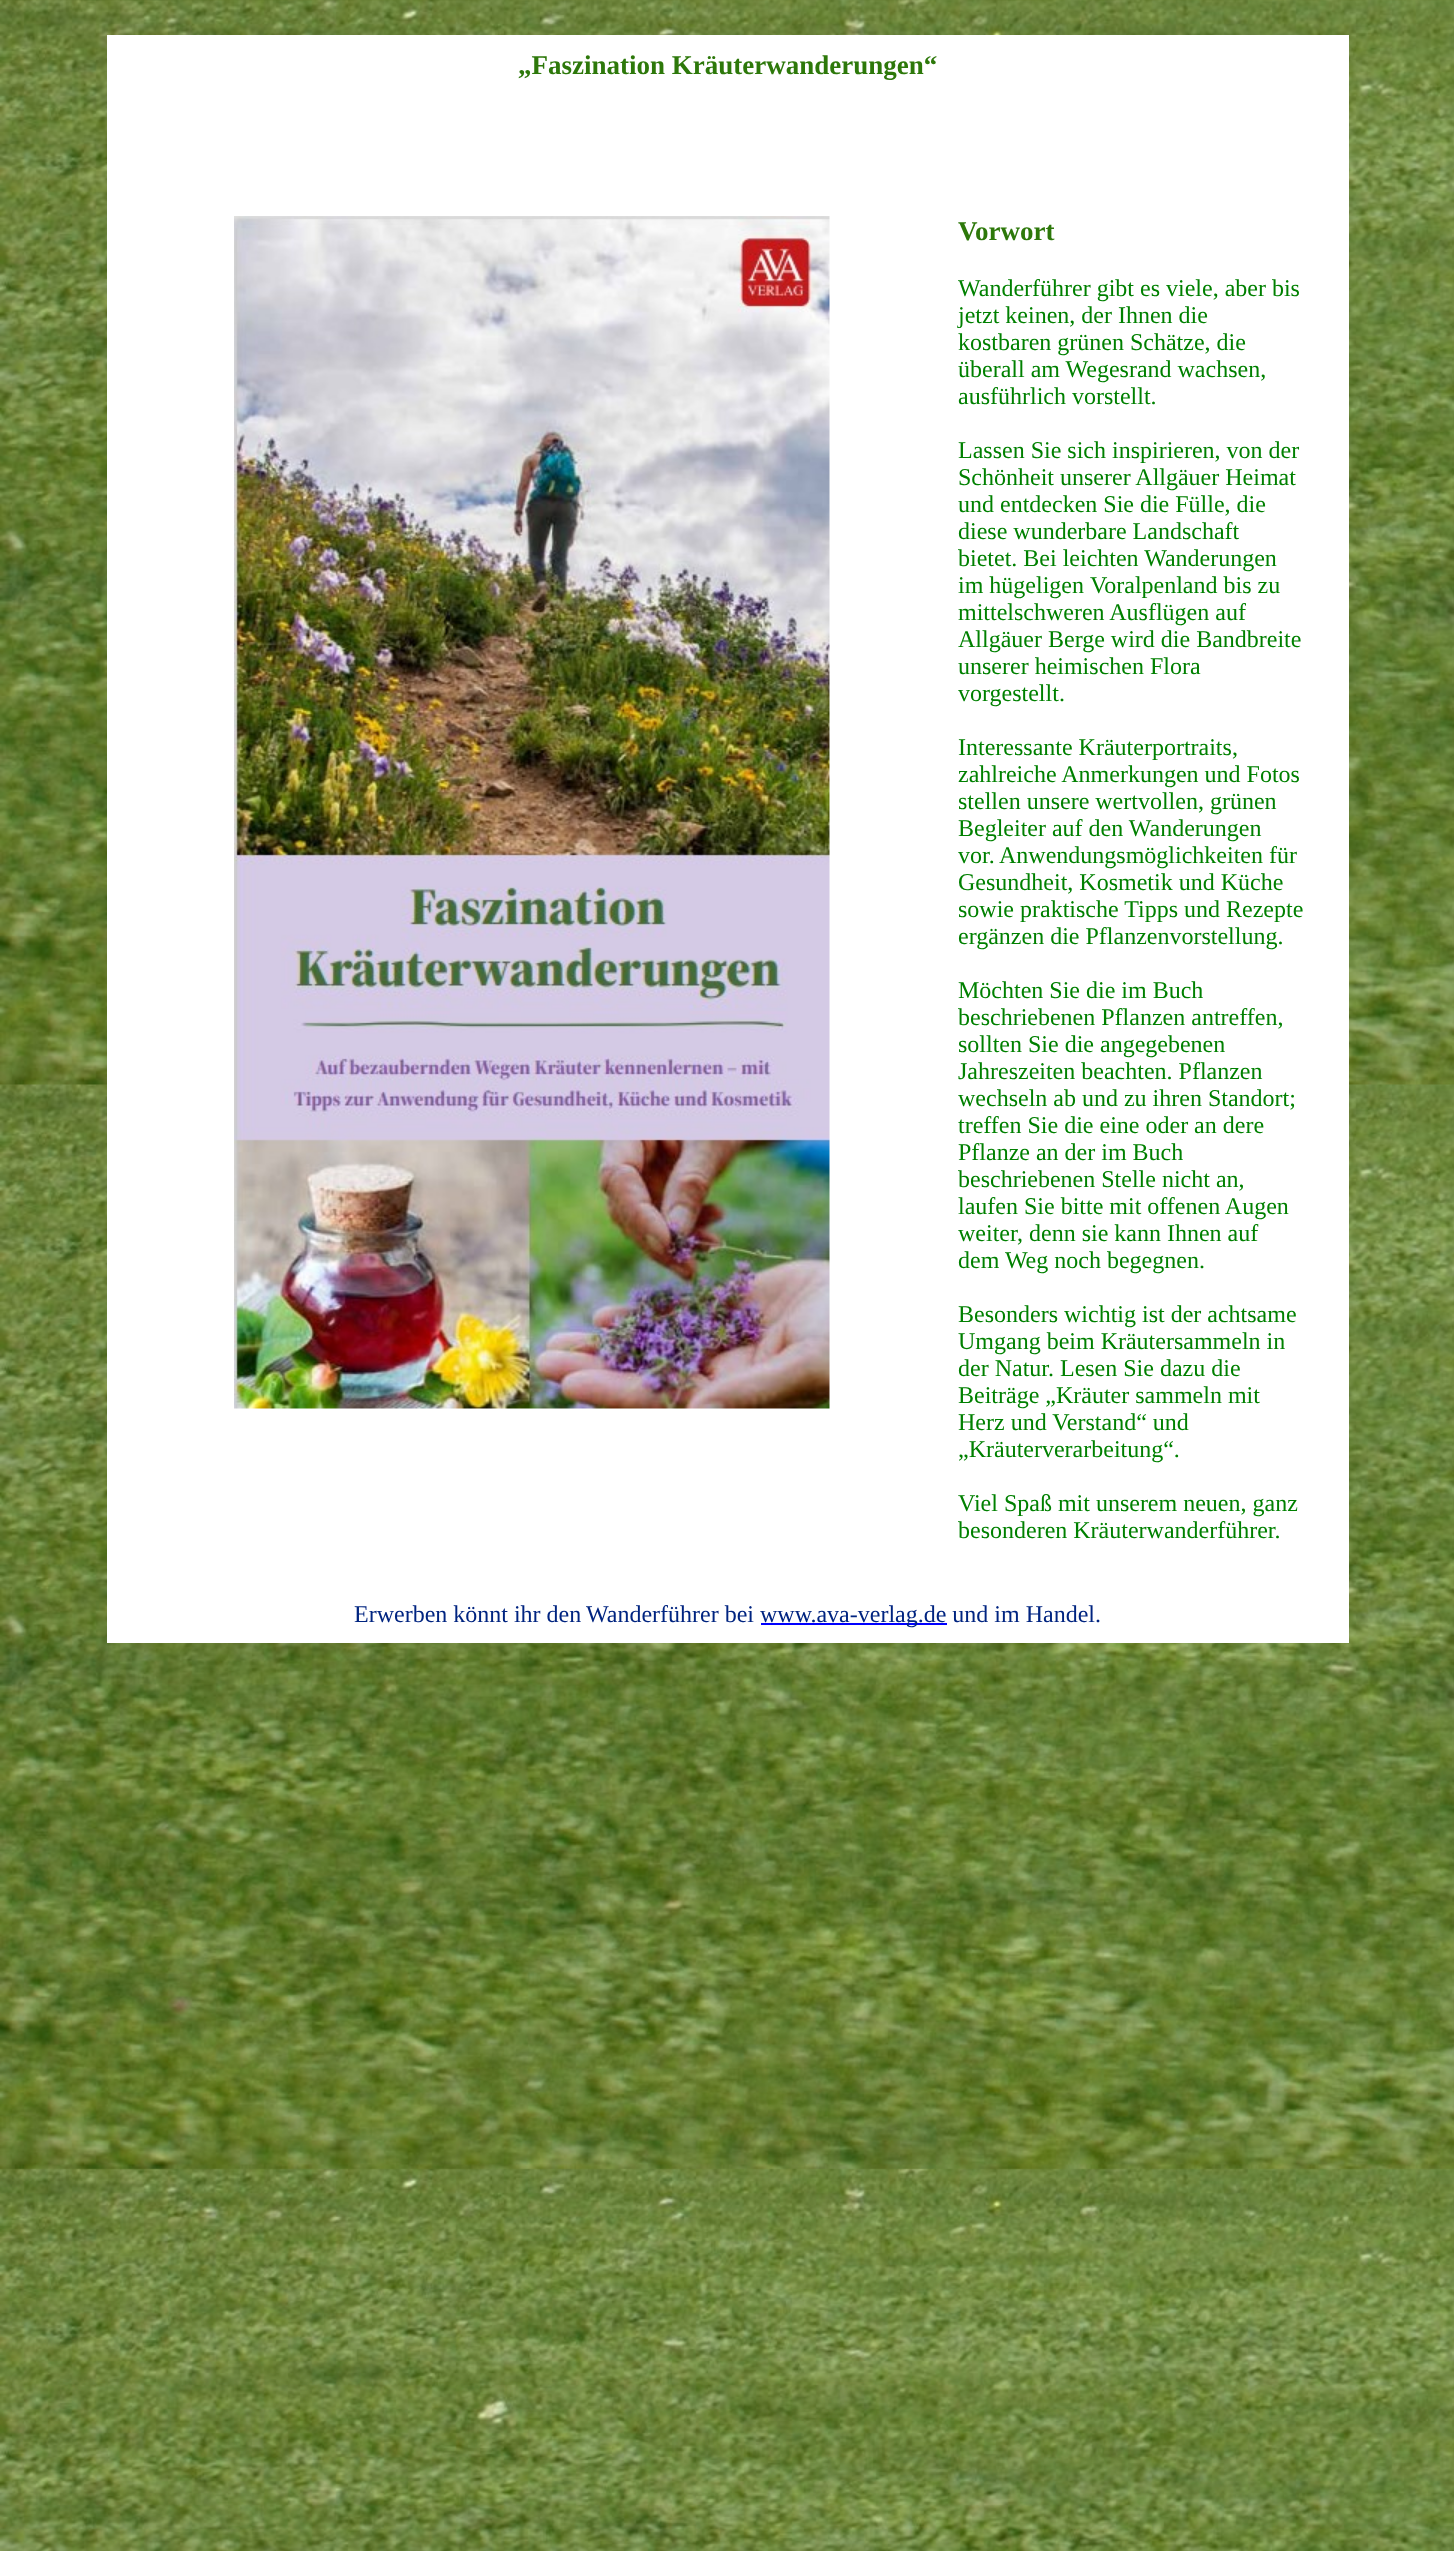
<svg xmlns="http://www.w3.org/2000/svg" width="1454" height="2551">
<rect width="100%" height="100%" fill="#fff"/>
<image x="0" y="0" width="1454" height="2551" href="media/1.png"/>
<rect x="107" y="35" width="1242" height="1608" fill="#fff"/>
<text x="518" y="74" style="font-family:Liberation Serif;font-size:27px;font-weight:bold;fill:#2d780a">„Faszination Kräuterwanderungen“</text>
<image x="234" y="216" width="596" height="1193" href="media/2.png"/>
<text x="958" y="240" style="font-family:Liberation Serif;font-size:27px;font-weight:bold;fill:#2d780a">Vorwort</text>
<text x="958" y="296" style="font-family:Liberation Serif;font-size:24px;fill:#008000">Wanderführer gibt es viele, aber bis</text>
<text x="958" y="323" style="font-family:Liberation Serif;font-size:24px;fill:#008000">jetzt keinen, der Ihnen die</text>
<text x="958" y="350" style="font-family:Liberation Serif;font-size:24px;fill:#008000">kostbaren grünen Schätze, die</text>
<text x="958" y="377" style="font-family:Liberation Serif;font-size:24px;fill:#008000">überall am Wegesrand wachsen,</text>
<text x="958" y="404" style="font-family:Liberation Serif;font-size:24px;fill:#008000">ausführlich vorstellt.</text>
<text x="958" y="458" style="font-family:Liberation Serif;font-size:24px;fill:#008000">Lassen Sie sich inspirieren, von der</text>
<text x="958" y="485" style="font-family:Liberation Serif;font-size:24px;fill:#008000">Schönheit unserer Allgäuer Heimat</text>
<text x="958" y="512" style="font-family:Liberation Serif;font-size:24px;fill:#008000">und entdecken Sie die Fülle, die</text>
<text x="958" y="539" style="font-family:Liberation Serif;font-size:24px;fill:#008000">diese wunderbare Landschaft</text>
<text x="958" y="566" style="font-family:Liberation Serif;font-size:24px;fill:#008000">bietet. Bei leichten Wanderungen</text>
<text x="958" y="593" style="font-family:Liberation Serif;font-size:24px;fill:#008000">im hügeligen</text>
<text x="1090" y="593" style="font-family:Liberation Serif;font-size:24px;fill:#008000">Voralpenland bis zu</text>
<text x="958" y="620" style="font-family:Liberation Serif;font-size:24px;fill:#008000">mittelschweren Ausflügen auf</text>
<text x="958" y="647" style="font-family:Liberation Serif;font-size:24px;fill:#008000">Allgäuer Berge wird die Bandbreite</text>
<text x="958" y="674" style="font-family:Liberation Serif;font-size:24px;fill:#008000">unserer heimischen Flora</text>
<text x="958" y="701" style="font-family:Liberation Serif;font-size:24px;fill:#008000">vorgestellt.</text>
<text x="958" y="755" style="font-family:Liberation Serif;font-size:24px;fill:#008000">Interessante Kräuterportraits,</text>
<text x="958" y="782" style="font-family:Liberation Serif;font-size:24px;fill:#008000">zahlreiche Anmerkungen und Fotos</text>
<text x="958" y="809" style="font-family:Liberation Serif;font-size:24px;fill:#008000">stellen unsere wertvollen, grünen</text>
<text x="958" y="836" style="font-family:Liberation Serif;font-size:24px;fill:#008000">Begleiter auf den Wanderungen</text>
<text x="958" y="863" style="font-family:Liberation Serif;font-size:24px;fill:#008000">vor.</text>
<text x="999" y="863" style="font-family:Liberation Serif;font-size:24px;fill:#008000">Anwendungsmöglichkeiten für</text>
<text x="958" y="890" style="font-family:Liberation Serif;font-size:24px;fill:#008000">Gesundheit, Kosmetik und Küche</text>
<text x="958" y="917" style="font-family:Liberation Serif;font-size:24px;fill:#008000">sowie praktische Tipps und Rezepte</text>
<text x="958" y="944" style="font-family:Liberation Serif;font-size:24px;fill:#008000">ergänzen die Pflanzenvorstellung.</text>
<text x="958" y="998" style="font-family:Liberation Serif;font-size:24px;fill:#008000">Möchten Sie die im Buch</text>
<text x="958" y="1025" style="font-family:Liberation Serif;font-size:24px;fill:#008000">beschriebenen Pflanzen antreffen,</text>
<text x="958" y="1052" style="font-family:Liberation Serif;font-size:24px;fill:#008000">sollten Sie die angegebenen</text>
<text x="958" y="1079" style="font-family:Liberation Serif;font-size:24px;fill:#008000">Jahreszeiten beachten. Pflanzen</text>
<text x="958" y="1106" style="font-family:Liberation Serif;font-size:24px;fill:#008000">wechseln ab und zu ihren Standort;</text>
<text x="958" y="1133" style="font-family:Liberation Serif;font-size:24px;fill:#008000">treffen Sie die eine oder an dere</text>
<text x="958" y="1160" style="font-family:Liberation Serif;font-size:24px;fill:#008000">Pflanze an der im Buch</text>
<text x="958" y="1187" style="font-family:Liberation Serif;font-size:24px;fill:#008000">beschriebenen Stelle nicht an,</text>
<text x="958" y="1214" style="font-family:Liberation Serif;font-size:24px;fill:#008000">laufen Sie bitte mit offenen Augen</text>
<text x="958" y="1241" style="font-family:Liberation Serif;font-size:24px;fill:#008000">weiter, denn sie kann Ihnen auf</text>
<text x="958" y="1268" style="font-family:Liberation Serif;font-size:24px;fill:#008000">dem Weg noch begegnen.</text>
<text x="958" y="1322" style="font-family:Liberation Serif;font-size:24px;fill:#008000">Besonders wichtig ist der achtsame</text>
<text x="958" y="1349" style="font-family:Liberation Serif;font-size:24px;fill:#008000">Umgang beim Kräutersammeln in</text>
<text x="958" y="1376" style="font-family:Liberation Serif;font-size:24px;fill:#008000">der Natur. Lesen Sie dazu die</text>
<text x="958" y="1403" style="font-family:Liberation Serif;font-size:24px;fill:#008000">Beiträge „Kräuter sammeln mit</text>
<text x="958" y="1430" style="font-family:Liberation Serif;font-size:24px;fill:#008000">Herz und Verstand“ und</text>
<text x="958" y="1457" style="font-family:Liberation Serif;font-size:24px;fill:#008000">„Kräuterverarbeitung“.</text>
<text x="958" y="1511" style="font-family:Liberation Serif;font-size:24px;fill:#008000">Viel Spaß mit unserem neuen, ganz</text>
<text x="958" y="1538" style="font-family:Liberation Serif;font-size:24px;fill:#008000">besonderen Kräuterwanderführer.</text>
<text x="354" y="1622" style="font-family:Liberation Serif;font-size:24px;fill:#002480">Erwerben könnt ihr den</text>
<text x="586" y="1622" style="font-family:Liberation Serif;font-size:24px;fill:#002480">Wanderführer bei</text>
<rect x="761" y="1623" width="186" height="2" fill="#00f"/>
<text x="760" y="1622" style="font-family:Liberation Serif;font-size:24px;fill:#002480">www.ava-verlag.de und im Handel.</text>
</svg>
